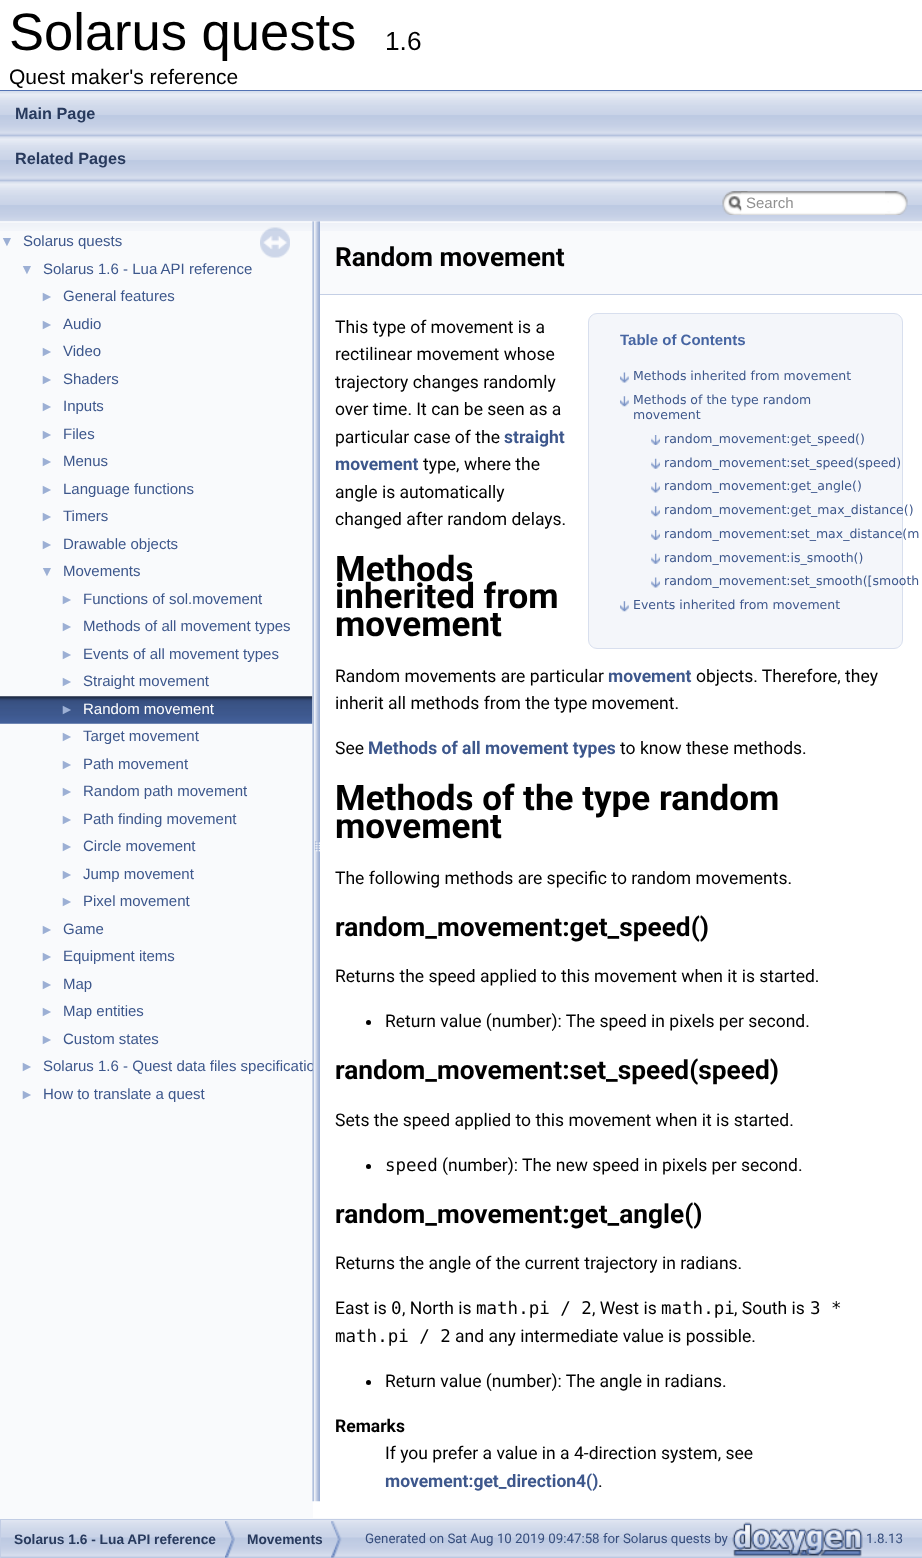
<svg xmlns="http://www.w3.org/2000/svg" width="922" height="1558">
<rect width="100%" height="100%" fill="#fff"/>
<rect y="90" width="922" height="1" fill="#5373b4"/>
<text x="9" y="50" style="font-family:Liberation Sans;font-size:52.5px;fill:#000">Solarus quests</text>
<text x="385" y="50" style="font-family:Liberation Sans;font-size:26.25px;fill:#000">1.6</text>
<text x="9" y="84" style="font-family:Liberation Sans;font-size:21px;fill:#000">Quest maker's reference</text>
<image x="1" y="1518" width="921" height="40" href="media/17.png"/>
<rect y="221" width="313" height="1298" fill="#f9fafc"/>
<image x="0" y="221" width="313" height="10" href="media/6.png"/>
<image x="0" y="696" width="313" height="28" href="media/8.png"/>
<text x="43" y="1071" style="font-family:Liberation Sans;font-size:15px;fill:#3d578c">Solarus 1.6 - Quest data files specificatio</text>
<image x="312" y="221" width="8" height="1281" href="media/9.png"/>
<rect x="320" y="221" width="602" height="73" fill="#f9fafc"/>
<image x="0" y="91" width="922" height="131" href="media/1.png"/>
<text x="15" y="119" style="font-family:Liberation Sans;font-size:16.25px;font-weight:bold;fill:#283a5d">Main Page</text>
<text x="15" y="164" style="font-family:Liberation Sans;font-size:16.25px;font-weight:bold;fill:#283a5d">Related Pages</text>
<image x="722" y="191" width="26" height="24" href="media/2.png"/>
<image x="728" y="196" width="14" height="16" href="media/3.png"/>
<image x="741" y="191" width="144" height="24" href="media/4.png"/>
<text x="746" y="208" style="font-family:Liberation Sans;font-size:15px;fill:#909090">Search</text>
<image x="885" y="191" width="23" height="24" href="media/5.png"/>
<image x="260" y="227" width="30" height="31" href="media/7.png"/>
<text x="0" y="246" style="font-family:Liberation Sans;font-size:14px;fill:#9cafd4">▼</text>
<text x="23" y="246" style="font-family:Liberation Sans;font-size:15px;fill:#3d578c">Solarus quests</text>
<text x="20" y="274" style="font-family:Liberation Sans;font-size:14px;fill:#9cafd4">▼</text>
<text x="43" y="274" style="font-family:Liberation Sans;font-size:15px;fill:#3d578c">Solarus 1.6 - Lua API reference</text>
<text x="40" y="301" style="font-family:Liberation Sans;font-size:14px;fill:#9cafd4">►</text>
<text x="63" y="301" style="font-family:Liberation Sans;font-size:15px;fill:#3d578c">General features</text>
<text x="40" y="329" style="font-family:Liberation Sans;font-size:14px;fill:#9cafd4">►</text>
<text x="63" y="329" style="font-family:Liberation Sans;font-size:15px;fill:#3d578c">Audio</text>
<text x="40" y="356" style="font-family:Liberation Sans;font-size:14px;fill:#9cafd4">►</text>
<text x="63" y="356" style="font-family:Liberation Sans;font-size:15px;fill:#3d578c">Video</text>
<text x="40" y="384" style="font-family:Liberation Sans;font-size:14px;fill:#9cafd4">►</text>
<text x="63" y="384" style="font-family:Liberation Sans;font-size:15px;fill:#3d578c">Shaders</text>
<text x="40" y="411" style="font-family:Liberation Sans;font-size:14px;fill:#9cafd4">►</text>
<text x="63" y="411" style="font-family:Liberation Sans;font-size:15px;fill:#3d578c">Inputs</text>
<text x="40" y="439" style="font-family:Liberation Sans;font-size:14px;fill:#9cafd4">►</text>
<text x="63" y="439" style="font-family:Liberation Sans;font-size:15px;fill:#3d578c">Files</text>
<text x="40" y="466" style="font-family:Liberation Sans;font-size:14px;fill:#9cafd4">►</text>
<text x="63" y="466" style="font-family:Liberation Sans;font-size:15px;fill:#3d578c">Menus</text>
<text x="40" y="494" style="font-family:Liberation Sans;font-size:14px;fill:#9cafd4">►</text>
<text x="63" y="494" style="font-family:Liberation Sans;font-size:15px;fill:#3d578c">Language functions</text>
<text x="40" y="521" style="font-family:Liberation Sans;font-size:14px;fill:#9cafd4">►</text>
<text x="63" y="521" style="font-family:Liberation Sans;font-size:15px;fill:#3d578c">Timers</text>
<text x="40" y="549" style="font-family:Liberation Sans;font-size:14px;fill:#9cafd4">►</text>
<text x="63" y="549" style="font-family:Liberation Sans;font-size:15px;fill:#3d578c">Drawable objects</text>
<text x="40" y="576" style="font-family:Liberation Sans;font-size:14px;fill:#9cafd4">▼</text>
<text x="63" y="576" style="font-family:Liberation Sans;font-size:15px;fill:#3d578c">Movements</text>
<text x="60" y="604" style="font-family:Liberation Sans;font-size:14px;fill:#9cafd4">►</text>
<text x="83" y="604" style="font-family:Liberation Sans;font-size:15px;fill:#3d578c">Functions of sol.movement</text>
<text x="60" y="631" style="font-family:Liberation Sans;font-size:14px;fill:#9cafd4">►</text>
<text x="83" y="631" style="font-family:Liberation Sans;font-size:15px;fill:#3d578c">Methods of all movement types</text>
<text x="60" y="659" style="font-family:Liberation Sans;font-size:14px;fill:#9cafd4">►</text>
<text x="83" y="659" style="font-family:Liberation Sans;font-size:15px;fill:#3d578c">Events of all movement types</text>
<text x="60" y="686" style="font-family:Liberation Sans;font-size:14px;fill:#9cafd4">►</text>
<text x="83" y="686" style="font-family:Liberation Sans;font-size:15px;fill:#3d578c">Straight movement</text>
<text x="60" y="714" style="font-family:Liberation Sans;font-size:14px;fill:#9cafd4">►</text>
<text x="83" y="714" style="font-family:Liberation Sans;font-size:15px;fill:#fff">Random movement</text>
<text x="60" y="741" style="font-family:Liberation Sans;font-size:14px;fill:#9cafd4">►</text>
<text x="83" y="741" style="font-family:Liberation Sans;font-size:15px;fill:#3d578c">Target movement</text>
<text x="60" y="769" style="font-family:Liberation Sans;font-size:14px;fill:#9cafd4">►</text>
<text x="83" y="769" style="font-family:Liberation Sans;font-size:15px;fill:#3d578c">Path movement</text>
<text x="60" y="796" style="font-family:Liberation Sans;font-size:14px;fill:#9cafd4">►</text>
<text x="83" y="796" style="font-family:Liberation Sans;font-size:15px;fill:#3d578c">Random path movement</text>
<text x="60" y="824" style="font-family:Liberation Sans;font-size:14px;fill:#9cafd4">►</text>
<text x="83" y="824" style="font-family:Liberation Sans;font-size:15px;fill:#3d578c">Path finding movement</text>
<text x="60" y="851" style="font-family:Liberation Sans;font-size:14px;fill:#9cafd4">►</text>
<text x="83" y="851" style="font-family:Liberation Sans;font-size:15px;fill:#3d578c">Circle movement</text>
<text x="60" y="879" style="font-family:Liberation Sans;font-size:14px;fill:#9cafd4">►</text>
<text x="83" y="879" style="font-family:Liberation Sans;font-size:15px;fill:#3d578c">Jump movement</text>
<text x="60" y="906" style="font-family:Liberation Sans;font-size:14px;fill:#9cafd4">►</text>
<text x="83" y="906" style="font-family:Liberation Sans;font-size:15px;fill:#3d578c">Pixel movement</text>
<text x="40" y="934" style="font-family:Liberation Sans;font-size:14px;fill:#9cafd4">►</text>
<text x="63" y="934" style="font-family:Liberation Sans;font-size:15px;fill:#3d578c">Game</text>
<text x="40" y="961" style="font-family:Liberation Sans;font-size:14px;fill:#9cafd4">►</text>
<text x="63" y="961" style="font-family:Liberation Sans;font-size:15px;fill:#3d578c">Equipment items</text>
<text x="40" y="989" style="font-family:Liberation Sans;font-size:14px;fill:#9cafd4">►</text>
<text x="63" y="989" style="font-family:Liberation Sans;font-size:15px;fill:#3d578c">Map</text>
<text x="40" y="1016" style="font-family:Liberation Sans;font-size:14px;fill:#9cafd4">►</text>
<text x="63" y="1016" style="font-family:Liberation Sans;font-size:15px;fill:#3d578c">Map entities</text>
<text x="40" y="1044" style="font-family:Liberation Sans;font-size:14px;fill:#9cafd4">►</text>
<text x="63" y="1044" style="font-family:Liberation Sans;font-size:15px;fill:#3d578c">Custom states</text>
<text x="20" y="1071" style="font-family:Liberation Sans;font-size:14px;fill:#9cafd4">►</text>
<text x="20" y="1099" style="font-family:Liberation Sans;font-size:14px;fill:#9cafd4">►</text>
<text x="43" y="1099" style="font-family:Liberation Sans;font-size:15px;fill:#3d578c">How to translate a quest</text>
<image x="320" y="223" width="602" height="8" href="media/10.png"/>
<rect x="320" y="294" width="602" height="1" fill="#c4cfe5"/>
<text x="335" y="266" style="font-family:Roboto;font-size:26.25px;font-weight:bold;fill:#000">Random movement</text>
<text x="335" y="333" style="font-family:Roboto;font-size:17.5px;fill:#000">This type of movement is a</text>
<text x="335" y="360" style="font-family:Roboto;font-size:17.5px;fill:#000">rectilinear movement whose</text>
<text x="335" y="388" style="font-family:Roboto;font-size:17.5px;fill:#000">trajectory changes randomly</text>
<text x="335" y="415" style="font-family:Roboto;font-size:17.5px;fill:#000">over time. It can be seen as a</text>
<text x="335" y="443" style="font-family:Roboto;font-size:17.5px;fill:#000">particular case of the</text>
<text x="504" y="443" style="font-family:Roboto;font-size:17.5px;font-weight:bold;fill:#3d578c">straight</text>
<text x="335" y="470" style="font-family:Roboto;font-size:17.5px;font-weight:bold;fill:#3d578c">movement</text>
<text x="423" y="470" style="font-family:Roboto;font-size:17.5px;fill:#000">type, where the</text>
<text x="335" y="498" style="font-family:Roboto;font-size:17.5px;fill:#000">angle is automatically</text>
<text x="335" y="525" style="font-family:Roboto;font-size:17.5px;fill:#000">changed after random delays.</text>
<text x="335" y="581" style="font-family:Roboto;font-size:35px;font-weight:bold;fill:#000">Methods</text>
<text x="335" y="608" style="font-family:Roboto;font-size:35px;font-weight:bold;fill:#000">inherited from</text>
<text x="335" y="636" style="font-family:Roboto;font-size:35px;font-weight:bold;fill:#000">movement</text>
<text x="335" y="682" style="font-family:Roboto;font-size:17.5px;fill:#000">Random movements are particular</text>
<text x="608" y="682" style="font-family:Roboto;font-size:17.5px;font-weight:bold;fill:#3d578c">movement</text>
<text x="696" y="682" style="font-family:Roboto;font-size:17.5px;fill:#000">objects. Therefore, they</text>
<text x="335" y="709" style="font-family:Roboto;font-size:17.5px;fill:#000">inherit all methods from the type movement.</text>
<text x="335" y="754" style="font-family:Roboto;font-size:17.5px;fill:#000">See</text>
<text x="368" y="754" style="font-family:Roboto;font-size:17.5px;font-weight:bold;fill:#3d578c">Methods of all movement types</text>
<text x="620" y="754" style="font-family:Roboto;font-size:17.5px;fill:#000">to know these methods.</text>
<text x="335" y="810" style="font-family:Roboto;font-size:35px;font-weight:bold;fill:#000">Methods of the type random</text>
<text x="335" y="838" style="font-family:Roboto;font-size:35px;font-weight:bold;fill:#000">movement</text>
<text x="335" y="884" style="font-family:Roboto;font-size:17.5px;fill:#000">The following methods are specific to random movements.</text>
<text x="335" y="936" style="font-family:Roboto;font-size:26.25px;font-weight:bold;fill:#000">random_movement:get_speed()</text>
<text x="335" y="982" style="font-family:Roboto;font-size:17.5px;fill:#000">Returns the speed applied to this movement when it is started.</text>
<circle cx="368.5" cy="1022.5" r="2.5" fill="#000"/>
<text x="385" y="1027" style="font-family:Roboto;font-size:17.5px;fill:#000">Return value (number): The speed in pixels per second.</text>
<text x="335" y="1079" style="font-family:Roboto;font-size:26.25px;font-weight:bold;fill:#000">random_movement:set_speed(speed)</text>
<text x="335" y="1126" style="font-family:Roboto;font-size:17.5px;fill:#000">Sets the speed applied to this movement when it is started.</text>
<circle cx="368.5" cy="1166.5" r="2.5" fill="#000"/>
<text x="385" y="1171" style="font-family:DejaVu Sans Mono;font-size:17.5px;fill:#000">speed</text>
<text x="442" y="1171" style="font-family:Roboto;font-size:17.5px;fill:#000">(number): The new speed in pixels per second.</text>
<text x="335" y="1223" style="font-family:Roboto;font-size:26.25px;font-weight:bold;fill:#000">random_movement:get_angle()</text>
<text x="335" y="1269" style="font-family:Roboto;font-size:17.5px;fill:#000">Returns the angle of the current trajectory in radians.</text>
<text x="335" y="1314" style="font-family:Roboto;font-size:17.5px;fill:#000">East is</text>
<text x="391" y="1314" style="font-family:DejaVu Sans Mono;font-size:17.5px;fill:#000">0</text>
<text x="402" y="1314" style="font-family:Roboto;font-size:17.5px;fill:#000">, North is</text>
<text x="476" y="1314" style="font-family:DejaVu Sans Mono;font-size:17.5px;fill:#000">math.pi / 2</text>
<text x="592" y="1314" style="font-family:Roboto;font-size:17.5px;fill:#000">, West is</text>
<text x="661" y="1314" style="font-family:DejaVu Sans Mono;font-size:17.5px;fill:#000">math.pi</text>
<text x="734" y="1314" style="font-family:Roboto;font-size:17.5px;fill:#000">, South is</text>
<text x="810" y="1314" style="font-family:DejaVu Sans Mono;font-size:17.5px;fill:#000">3 *</text>
<text x="335" y="1342" style="font-family:DejaVu Sans Mono;font-size:17.5px;fill:#000">math.pi / 2</text>
<text x="455" y="1342" style="font-family:Roboto;font-size:17.5px;fill:#000">and any intermediate value is possible.</text>
<circle cx="368.5" cy="1382.5" r="2.5" fill="#000"/>
<text x="385" y="1387" style="font-family:Roboto;font-size:17.5px;fill:#000">Return value (number): The angle in radians.</text>
<text x="335" y="1432" style="font-family:Roboto;font-size:17.5px;font-weight:bold;fill:#000">Remarks</text>
<text x="385" y="1459" style="font-family:Roboto;font-size:17.5px;fill:#000">If you prefer a value in a 4-direction system, see</text>
<text x="385" y="1487" style="font-family:Roboto;font-size:17.5px;font-weight:bold;fill:#3d578c">movement:get_direction4()</text>
<text x="598" y="1487" style="font-family:Roboto;font-size:17.5px;fill:#000">.</text>
<rect x="588.5" y="313.5" width="314" height="335" rx="8.5" fill="#f4f6fa" stroke="#d8dfee"/>
<text x="620" y="345" style="font-family:Liberation Sans;font-size:15px;font-weight:bold;fill:#4665a2">Table of Contents</text>
<image x="620" y="372" width="9" height="11" href="media/11.png"/>
<text x="633" y="380" style="font-family:DejaVu Sans;font-size:12.5px;fill:#3d578c">Methods inherited from movement</text>
<image x="620" y="396" width="9" height="11" href="media/12.png"/>
<text x="633" y="404" style="font-family:DejaVu Sans;font-size:12.5px;fill:#3d578c">Methods of the type random</text>
<text x="633" y="419" style="font-family:DejaVu Sans;font-size:12.5px;fill:#3d578c">movement</text>
<image x="651" y="435" width="9" height="10" href="media/13.png"/>
<text x="664" y="443" style="font-family:DejaVu Sans;font-size:12.5px;fill:#3d578c">random_movement:get_speed()</text>
<image x="651" y="458" width="9" height="11" href="media/14.png"/>
<text x="664" y="467" style="font-family:DejaVu Sans;font-size:12.5px;fill:#3d578c">random_movement:set_speed(speed)</text>
<image x="651" y="482" width="9" height="11" href="media/15.png"/>
<text x="664" y="490" style="font-family:DejaVu Sans;font-size:12.5px;fill:#3d578c">random_movement:get_angle()</text>
<image x="651" y="506" width="9" height="11" href="media/16.png"/>
<text x="664" y="514" style="font-family:DejaVu Sans;font-size:12.5px;fill:#3d578c">random_movement:get_max_distance()</text>
<image x="651" y="530" width="9" height="10" href="media/13.png"/>
<text x="664" y="538" style="font-family:DejaVu Sans;font-size:12.5px;fill:#3d578c">random_movement:set_max_distance(m</text>
<image x="651" y="553" width="9" height="11" href="media/14.png"/>
<text x="664" y="562" style="font-family:DejaVu Sans;font-size:12.5px;fill:#3d578c">random_movement:is_smooth()</text>
<image x="651" y="577" width="9" height="11" href="media/15.png"/>
<text x="664" y="585" style="font-family:DejaVu Sans;font-size:12.5px;fill:#3d578c">random_movement:set_smooth([smooth</text>
<image x="620" y="601" width="9" height="11" href="media/12.png"/>
<text x="633" y="609" style="font-family:DejaVu Sans;font-size:12.5px;fill:#3d578c">Events inherited from movement</text>
<rect x="0.5" y="1519.5" width="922" height="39" fill="none" stroke="#c2cde4"/>
<image x="225" y="1521" width="10" height="37" href="media/18.png"/>
<text x="14" y="1544" style="font-family:Liberation Sans;font-size:13.75px;font-weight:bold;fill:#283a5d">Solarus 1.6 - Lua API reference</text>
<image x="331" y="1521" width="11" height="37" href="media/19.png"/>
<text x="247" y="1544" style="font-family:Liberation Sans;font-size:13.75px;font-weight:bold;fill:#283a5d">Movements</text>
<text x="365" y="1543" style="font-family:Roboto;font-size:13.3px;fill:#364d7c">Generated on Sat Aug 10 2019 09:47:58 for Solarus quests by</text>
<image x="732" y="1522" width="131" height="35" href="media/20.png"/>
<text x="866" y="1543" style="font-family:Roboto;font-size:13.3px;fill:#364d7c">1.8.13</text>
</svg>
